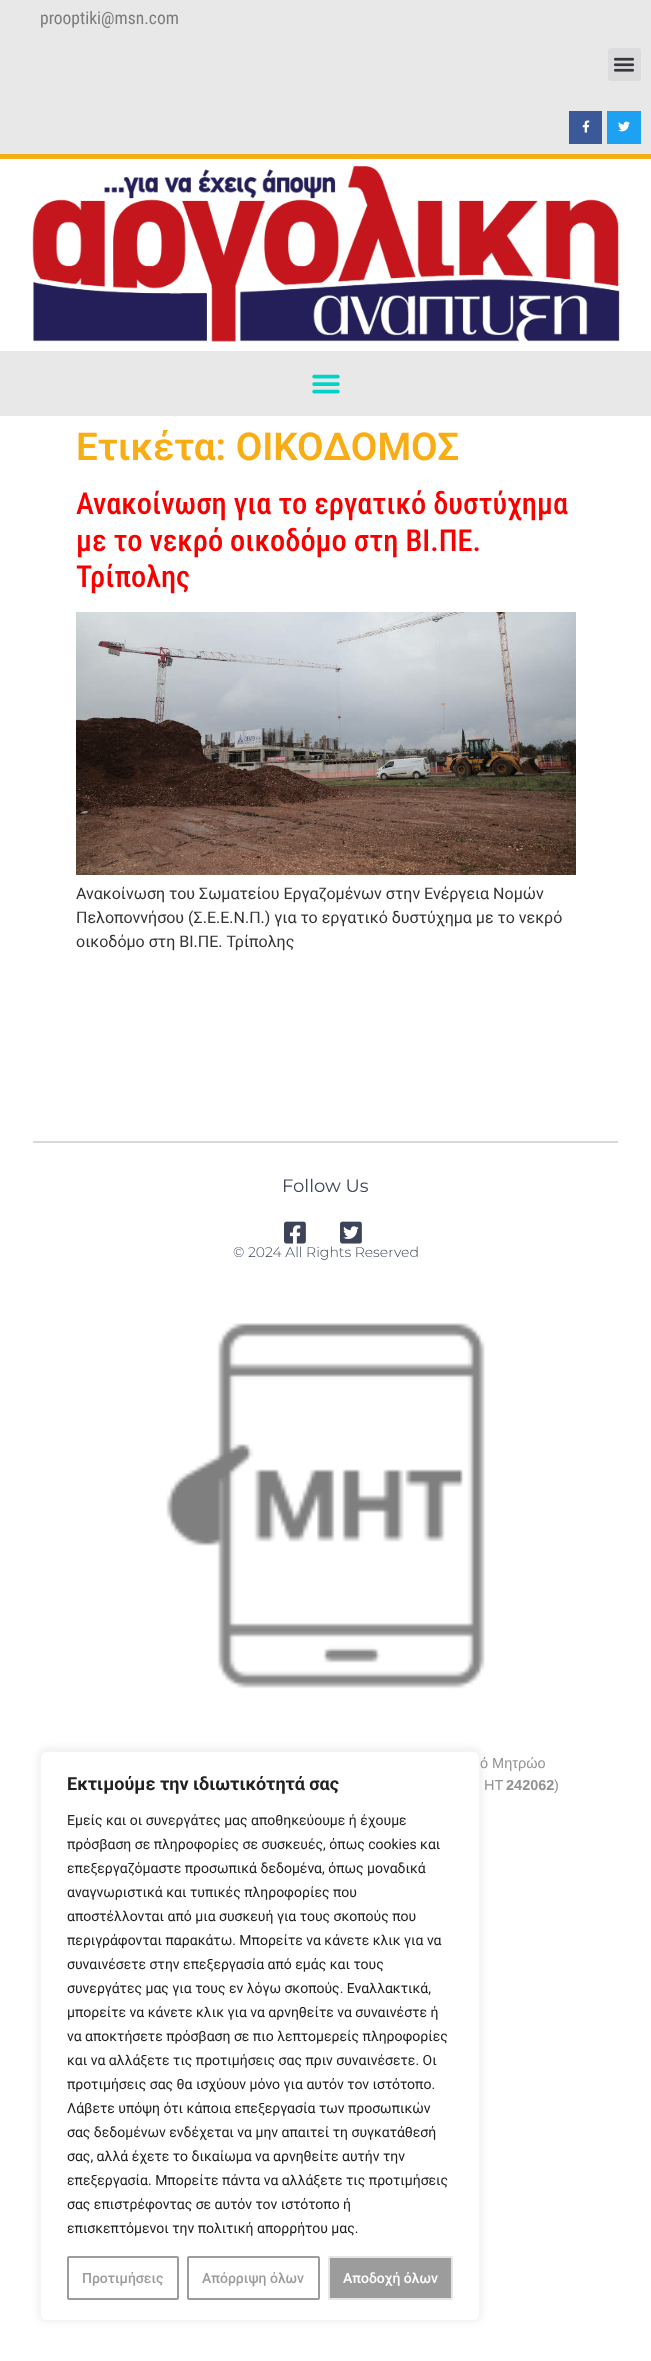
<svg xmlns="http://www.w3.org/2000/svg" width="651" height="2361">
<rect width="100%" height="100%" fill="#fff"/>
<rect width="651" height="154" fill="#e8e8e8"/>
<text x="40" y="24" style="font-family:Roboto Condensed;font-size:17.5px;fill:#7b7b7b">prooptiki@msn.com</text>
<rect x="608" y="48" width="33" height="33" rx="3" fill="#dcdcdc"/>
<image x="613" y="57" width="22" height="15" href="media/1.png"/>
<rect x="569" y="111" width="33" height="33" fill="#3b5998"/>
<image x="582" y="120" width="8" height="13" href="media/2.png"/>
<rect x="607" y="111" width="34" height="33" fill="#1da1f2"/>
<image x="618" y="121" width="12" height="11" href="media/3.png"/>
<rect y="154" width="651" height="5" fill="#f9ad15"/>
<image x="32" y="166" width="588" height="176" href="media/4.png"/>
<rect y="351" width="651" height="65" fill="#e8e8e8"/>
<image x="312" y="374" width="28" height="20" href="media/5.png"/>
<text x="76" y="460" style="font-family:Roboto;font-size:38.5px;font-weight:600;fill:#f9ad15">Ετικέτα: ΟΙΚΟΔΟΜΟΣ</text>
<text x="76" y="514" style="font-family:Roboto Condensed;font-size:30.4px;font-weight:500;fill:#f80000">Ανακοίνωση για το εργατικό δυστύχημα</text>
<text x="76" y="551" style="font-family:Roboto Condensed;font-size:30.4px;font-weight:500;fill:#f80000">με το νεκρό οικοδόμο στη ΒΙ.ΠΕ.</text>
<text x="76" y="587" style="font-family:Roboto Condensed;font-size:30.4px;font-weight:500;fill:#f80000">Τρίπολης</text>
<image x="76" y="612" width="500" height="263" href="media/6.png"/>
<text x="76" y="899" style="font-family:Roboto;font-size:16px;fill:#333">Ανακοίνωση του Σωματείου Εργαζομένων στην Ενέργεια Νομών</text>
<text x="76" y="923" style="font-family:Roboto;font-size:16px;fill:#333">Πελοποννήσου (Σ.Ε.Ε.Ν.Π.) για το εργατικό δυστύχημα με το νεκρό</text>
<text x="76" y="947" style="font-family:Roboto;font-size:16px;fill:#333">οικοδόμο στη ΒΙ.ΠΕ. Τρίπολης</text>
<rect x="33" y="1141" width="585" height="2" fill="#d8d8d8"/>
<text x="282" y="1192" style="font-family:Montserrat;font-size:18px;fill:#3d4459">Follow Us</text>
<image x="284" y="1221" width="22" height="23" href="media/7.png"/>
<image x="340" y="1221" width="22" height="23" href="media/8.png"/>
<text x="233" y="1257" style="font-family:Montserrat;font-size:14px;font-weight:300;fill:#3d4459">© 2024 All Rights Reserved</text>
<image x="166" y="1323" width="319" height="366" href="media/9.png"/>
<text x="480" y="1768" style="font-family:Liberation Sans;font-size:14.5px;fill:#929292">ό Μητρώο</text>
<text x="484" y="1790" style="font-family:Liberation Sans;font-size:14.5px;fill:#929292">ΗΤ</text>
<text x="506" y="1790" style="font-family:Liberation Sans;font-size:14.5px;font-weight:bold;fill:#929292">242062</text>
<text x="554" y="1790" style="font-family:Liberation Sans;font-size:14.5px;fill:#929292">)</text>
<rect x="40" y="1750" width="440" height="570" rx="6" fill="#acabab4d" filter="blur(5px)"/>
<rect x="40.5" y="1751.5" width="439" height="569" rx="5.5" fill="#fff" stroke="#f4f4f4"/>
<text x="67" y="1790" style="font-family:Roboto;font-size:18px;font-weight:bold;fill:#212121">Εκτιμούμε την ιδιωτικότητά σας</text>
<text x="67" y="1825" style="font-family:Roboto;font-size:14px;fill:#212121">Εμείς και οι συνεργάτες μας αποθηκεύουμε ή έχουμε</text>
<text x="67" y="1849" style="font-family:Roboto;font-size:14px;fill:#212121">πρόσβαση σε πληροφορίες σε συσκευές, όπως cookies και</text>
<text x="67" y="1873" style="font-family:Roboto;font-size:14px;fill:#212121">επεξεργαζόμαστε προσωπικά δεδομένα, όπως μοναδικά</text>
<text x="67" y="1897" style="font-family:Roboto;font-size:14px;fill:#212121">αναγνωριστικά και τυπικές πληροφορίες που</text>
<text x="67" y="1921" style="font-family:Roboto;font-size:14px;fill:#212121">αποστέλλονται από μια συσκευή για τους σκοπούς που</text>
<text x="67" y="1945" style="font-family:Roboto;font-size:14px;fill:#212121">περιγράφονται παρακάτω. Μπορείτε να κάνετε κλικ για να</text>
<text x="67" y="1969" style="font-family:Roboto;font-size:14px;fill:#212121">συναινέσετε στην επεξεργασία από εμάς και τους</text>
<text x="67" y="1993" style="font-family:Roboto;font-size:14px;fill:#212121">συνεργάτες μας για τους εν λόγω σκοπούς. Εναλλακτικά,</text>
<text x="67" y="2017" style="font-family:Roboto;font-size:14px;fill:#212121">μπορείτε να κάνετε κλικ για να αρνηθείτε να συναινέστε ή</text>
<text x="67" y="2041" style="font-family:Roboto;font-size:14px;fill:#212121">να αποκτήσετε πρόσβαση σε πιο λεπτομερείς πληροφορίες</text>
<text x="67" y="2065" style="font-family:Roboto;font-size:14px;fill:#212121">και να αλλάξετε τις προτιμήσεις σας πριν συναινέσετε. Οι</text>
<text x="67" y="2089" style="font-family:Roboto;font-size:14px;fill:#212121">προτιμήσεις σας θα ισχύουν μόνο για αυτόν τον ιστότοπο.</text>
<text x="67" y="2113" style="font-family:Roboto;font-size:14px;fill:#212121">Λάβετε υπόψη ότι κάποια επεξεργασία των προσωπικών</text>
<text x="67" y="2137" style="font-family:Roboto;font-size:14px;fill:#212121">σας δεδομένων ενδέχεται να μην απαιτεί τη συγκατάθεσή</text>
<text x="67" y="2161" style="font-family:Roboto;font-size:14px;fill:#212121">σας, αλλά έχετε το δικαίωμα να αρνηθείτε αυτήν την</text>
<text x="67" y="2185" style="font-family:Roboto;font-size:14px;fill:#212121">επεξεργασία. Μπορείτε πάντα να αλλάξετε τις προτιμήσεις</text>
<text x="67" y="2209" style="font-family:Roboto;font-size:14px;fill:#212121">σας επιστρέφοντας σε αυτόν τον ιστότοπο ή</text>
<text x="67" y="2233" style="font-family:Roboto;font-size:14px;fill:#212121">επισκεπτόμενοι την πολιτική απορρήτου μας.</text>
<rect x="68" y="2257" width="110" height="42" rx="1" fill="none" stroke="#9c9c9c" stroke-width="2"/>
<text x="82" y="2283" style="font-family:Roboto;font-size:14px;font-weight:500;fill:#9c9c9c">Προτιμήσεις</text>
<rect x="188" y="2257" width="131" height="42" rx="1" fill="none" stroke="#9c9c9c" stroke-width="2"/>
<text x="202" y="2283" style="font-family:Roboto;font-size:14px;font-weight:500;fill:#9c9c9c">Απόρριψη όλων</text>
<rect x="329" y="2257" width="123" height="42" rx="1" fill="#9c9c9c" stroke="#e6e6e6" stroke-width="2"/>
<text x="343" y="2283" style="font-family:Roboto;font-size:14px;font-weight:500;fill:#fff">Αποδοχή όλων</text>
</svg>
